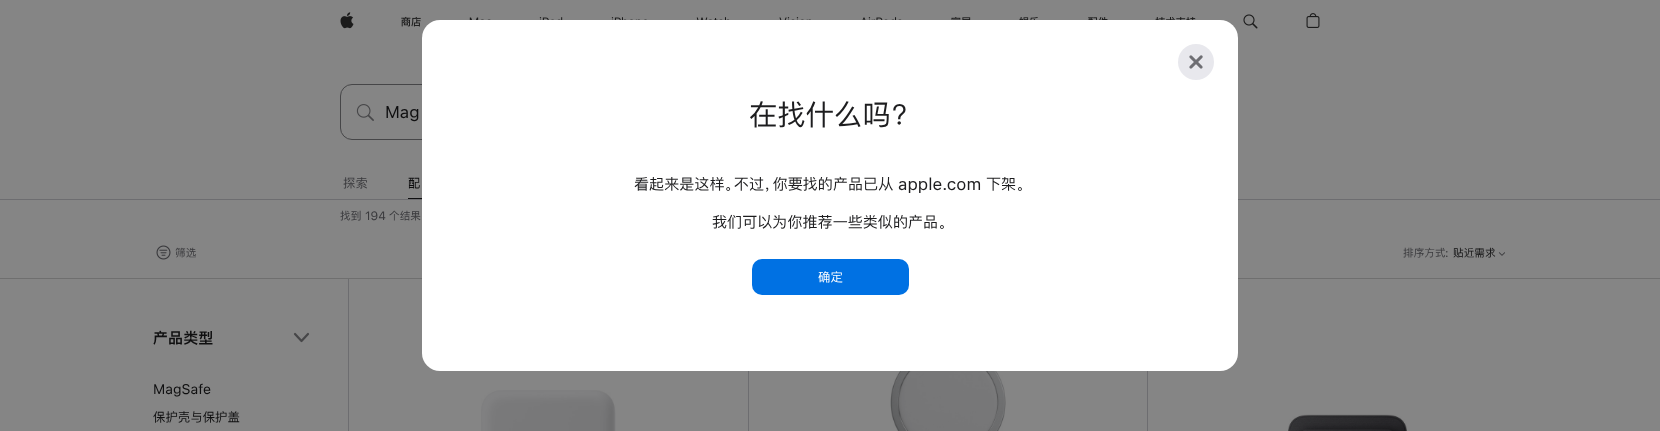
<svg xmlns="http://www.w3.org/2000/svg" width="1660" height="431">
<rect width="100%" height="100%" fill="#858585"/>
<rect x="340.5" y="84.5" width="579" height="55" rx="11.5" fill="none" stroke="#464648"/>
<rect y="199" width="1660" height="1" fill="#6d6d70"/>
<rect x="348" y="278" width="1" height="153" fill="#6d6d70"/>
<rect y="278" width="1660" height="1" fill="#6f6f6f"/>
<rect x="422" y="20" width="816" height="351" rx="18" fill="#fff"/>
<circle cx="1196" cy="62" r="18" fill="#e8e8ed"/>
<image x="1189" y="55" width="14" height="14" href="media/1.png"/>
<text x="749" y="126" style="font-family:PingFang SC;font-size:32px;fill:#1d1d1f">在找什么吗？</text>
<text x="634" y="190" style="font-family:PingFang SC;font-size:17px;fill:#1d1d1f">看起来是这样。不过，你要找的产品已从</text>
<text x="898" y="190" style="font-family:SF Pro Text;font-size:17px;fill:#1d1d1f">apple.com</text>
<text x="986" y="190" style="font-family:PingFang SC;font-size:17px;fill:#1d1d1f">下架。</text>
<text x="712" y="228" style="font-family:PingFang SC;font-size:17px;fill:#1d1d1f">我们可以为你推荐一些类似的产品。</text>
<rect x="752" y="259" width="157" height="36" rx="10" fill="#0071e3"/>
<text x="818" y="282" style="font-family:PingFang SC;font-size:14px;fill:#fff">确定</text>
<image x="340" y="12" width="14" height="17" href="media/2.png"/>
<image x="401" y="16" width="20" height="11" href="media/3.png"/>
<image x="469" y="17" width="22" height="3" href="media/4.png"/>
<image x="539" y="17" width="24" height="3" href="media/5.png"/>
<image x="611" y="17" width="36" height="3" href="media/6.png"/>
<image x="696" y="17" width="34" height="3" href="media/7.png"/>
<image x="779" y="17" width="32" height="3" href="media/8.png"/>
<image x="862" y="17" width="40" height="3" href="media/9.png"/>
<image x="951" y="17" width="20" height="3" href="media/10.png"/>
<image x="1019" y="17" width="19" height="3" href="media/11.png"/>
<image x="1088" y="17" width="20" height="3" href="media/12.png"/>
<image x="1155" y="17" width="41" height="3" href="media/13.png"/>
<image x="1243" y="14" width="15" height="15" href="media/14.png"/>
<image x="1306" y="13" width="14" height="15" href="media/15.png"/>
<image x="356" y="104" width="18" height="17" href="media/16.png"/>
<text x="385" y="118" style="font-family:SF Pro Text;font-size:17px;fill:#0f0f10">Mag</text>
<text x="343" y="188" style="font-family:PingFang SC;font-size:14px;fill:#39393c">探索</text>
<text x="408" y="188" style="font-family:PingFang SC;font-size:14px;fill:#0f0f10">配</text>
<rect x="408" y="198" width="14" height="1" fill="#0f0f10"/>
<text x="340" y="220" style="font-family:PingFang SC;font-size:12px;fill:#39393c">找到</text>
<text x="365" y="220" style="font-family:SF Pro Text;font-size:12px;fill:#39393c">194</text>
<text x="389" y="220" style="font-family:PingFang SC;font-size:12px;fill:#39393c">个结果</text>
<image x="156" y="245" width="15" height="15" href="media/17.png"/>
<text x="175" y="257" style="font-family:PingFang SC;font-size:12px;fill:#39393c">筛选</text>
<text x="1403" y="257" style="font-family:PingFang SC;font-size:12px;fill:#39393c">排序方式</text>
<text x="1445" y="257" style="font-family:SF Pro Text;font-size:12px;fill:#39393c">:</text>
<text x="1453" y="257" style="font-family:PingFang SC;font-size:12px;fill:#0f0f10">贴近需求</text>
<image x="1498" y="252" width="7" height="4" href="media/18.png"/>
<text x="153" y="344" style="font-family:PingFang SC;font-size:17px;font-weight:600;fill:#0f0f10">产品类型</text>
<path d="M308 334l-6.5 7l-6.5-7" fill="none" stroke="#464648" stroke-width="2.2" stroke-linecap="round" stroke-linejoin="round"/>
<text x="153" y="394" style="font-family:SF Pro Text;font-size:14px;fill:#0f0f10">MagSafe</text>
<text x="153" y="422" style="font-family:PingFang SC;font-size:14px;fill:#0f0f10">保护壳与保护盖</text>
<rect x="748" y="371" width="1" height="60" fill="#6d6d70"/>
<image x="481" y="390" width="135" height="41" href="media/19.png"/>
<rect x="1147" y="371" width="1" height="60" fill="#6d6d70"/>
<image x="890" y="371" width="116" height="60" href="media/20.png"/>
<image x="1288" y="414" width="119" height="17" href="media/21.png"/>
</svg>
